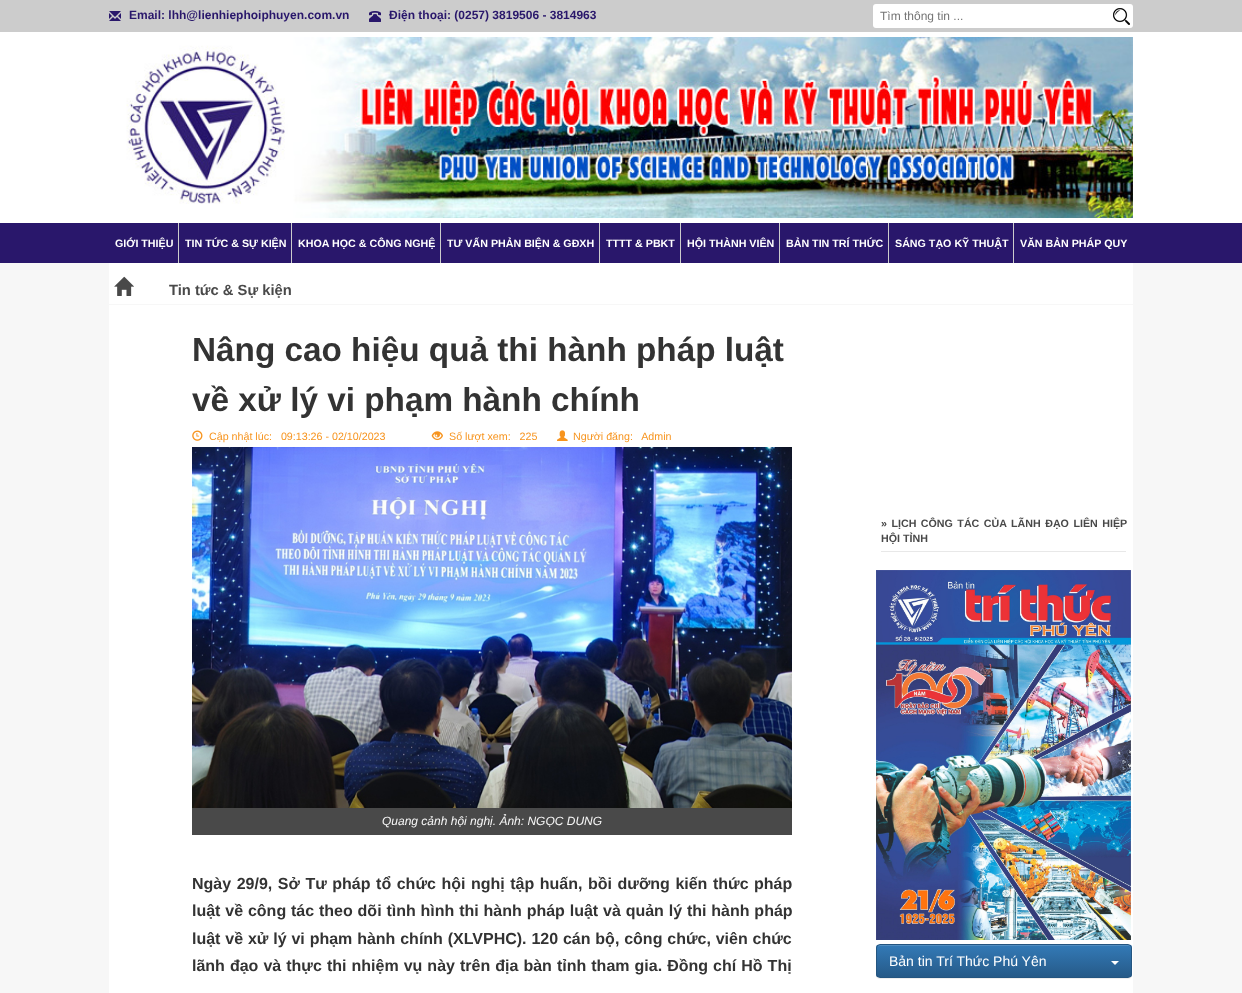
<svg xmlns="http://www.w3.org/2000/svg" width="1242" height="993">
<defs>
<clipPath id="clip1"><rect x="876" y="944" width="256" height="34" rx="4"/></clipPath>
<linearGradient id="g1" gradientUnits="userSpaceOnUse" x1="1004" y1="945" x2="1004" y2="977"><stop offset="0" stop-color="#337ab7"/><stop offset="1" stop-color="#265a88"/></linearGradient>
</defs>
<rect width="100%" height="100%" fill="#f7f7f7"/>
<rect width="1242" height="32" fill="#ccc"/>
<image x="109" y="11" width="12" height="10" href="media/1.png"/>
<text x="129" y="19" style="font-family:Liberation Sans;font-size:12px;font-weight:bold;fill:#29176b">Email: lhh@lienhiephoiphuyen.com.vn</text>
<image x="369" y="11" width="12" height="11" href="media/2.png"/>
<text x="389" y="19" style="font-family:Liberation Sans;font-size:12px;font-weight:bold;fill:#29176b">Điện thoại: (0257) 3819506 - 3814963</text>
<rect x="873" y="4" width="260" height="24" rx="3" fill="#fff"/>
<text x="880" y="20" style="font-family:Liberation Sans;font-size:12px;fill:#757575">Tìm thông tin ...</text>
<image x="1113" y="8" width="17" height="17" href="media/3.png"/>
<rect y="32" width="1242" height="191" fill="#fff"/>
<image x="126" y="37" width="1007" height="181" href="media/4.png"/>
<rect y="223" width="1242" height="40" fill="#29176b"/>
<text x="115" y="247" style="font-family:Liberation Sans;font-size:10.7px;font-weight:bold;fill:#fff">GIỚI THIỆU</text>
<rect x="178" y="223" width="1" height="40" fill="#ccc"/>
<text x="185" y="247" style="font-family:Liberation Sans;font-size:10.7px;font-weight:bold;fill:#fff">TIN TỨC &amp; SỰ KIỆN</text>
<rect x="291" y="223" width="1" height="40" fill="#ccc"/>
<text x="298" y="247" style="font-family:Liberation Sans;font-size:10.7px;font-weight:bold;fill:#fff">KHOA HỌC &amp; CÔNG NGHỆ</text>
<rect x="440" y="223" width="1" height="40" fill="#ccc"/>
<text x="447" y="247" style="font-family:Liberation Sans;font-size:10.7px;font-weight:bold;fill:#fff">TƯ VẤN PHẢN BIỆN &amp; GĐXH</text>
<rect x="599" y="223" width="1" height="40" fill="#ccc"/>
<text x="606" y="247" style="font-family:Liberation Sans;font-size:10.7px;font-weight:bold;fill:#fff">TTTT &amp; PBKT</text>
<rect x="680" y="223" width="1" height="40" fill="#ccc"/>
<text x="687" y="247" style="font-family:Liberation Sans;font-size:10.7px;font-weight:bold;fill:#fff">HỘI THÀNH VIÊN</text>
<rect x="779" y="223" width="1" height="40" fill="#ccc"/>
<text x="786" y="247" style="font-family:Liberation Sans;font-size:10.7px;font-weight:bold;fill:#fff">BẢN TIN TRÍ THỨC</text>
<rect x="888" y="223" width="1" height="40" fill="#ccc"/>
<text x="895" y="247" style="font-family:Liberation Sans;font-size:10.7px;font-weight:bold;fill:#fff">SÁNG TẠO KỸ THUẬT</text>
<rect x="1013" y="223" width="1" height="40" fill="#ccc"/>
<text x="1020" y="247" style="font-family:Liberation Sans;font-size:10.7px;font-weight:bold;fill:#fff">VĂN BẢN PHÁP QUY</text>
<rect x="109" y="263" width="1024" height="730" fill="#fff"/>
<rect x="109" y="304" width="1024" height="1" fill="#f7f7f7"/>
<image x="114" y="276" width="20" height="20" href="media/5.png"/>
<text x="169" y="295" style="font-family:Liberation Sans;font-size:14.75px;font-weight:bold;fill:#494949">Tin tức &amp; Sự kiện</text>
<text x="192" y="361" style="font-family:Liberation Sans;font-size:33.3px;font-weight:bold;fill:#333">Nâng cao hiệu quả thi hành pháp luật</text>
<text x="192" y="411" style="font-family:Liberation Sans;font-size:33.3px;font-weight:bold;fill:#333">về xử lý vi phạm hành chính</text>
<image x="192" y="430" width="11" height="11" href="media/6.png"/>
<text x="209" y="440" style="font-family:Liberation Sans;font-size:10.7px;fill:#f7941e" xml:space="preserve">Cập nhật lúc:   09:13:26 - 02/10/2023</text>
<image x="431" y="431" width="12" height="10" href="media/7.png"/>
<text x="449" y="440" style="font-family:Liberation Sans;font-size:10.7px;fill:#f7941e" xml:space="preserve">Số lượt xem:   225</text>
<image x="557" y="430" width="11" height="11" href="media/8.png"/>
<text x="573" y="440" style="font-family:Liberation Sans;font-size:10.7px;fill:#f7941e" xml:space="preserve">Người đăng:   Admin</text>
<image x="192" y="447" width="600" height="361" href="media/9.png"/>
<rect x="192" y="808" width="600" height="27" fill="#494949"/>
<text x="382" y="825" style="font-family:Liberation Sans;font-size:12px;font-style:italic;fill:#f7f7f7">Quang cảnh hội nghị. Ảnh: NGỌC DUNG</text>
<text x="192" y="889" word-spacing="1.1" style="font-family:Liberation Sans;font-size:16px;font-weight:bold;fill:#333">Ngày 29/9, Sở Tư pháp tổ chức hội nghị tập huấn, bồi dưỡng kiến thức pháp</text>
<text x="192" y="916" word-spacing="0.4" style="font-family:Liberation Sans;font-size:16px;font-weight:bold;fill:#333">luật về công tác theo dõi tình hình thi hành pháp luật và quản lý thi hành pháp</text>
<text x="192" y="944" word-spacing="0.4" style="font-family:Liberation Sans;font-size:16px;font-weight:bold;fill:#333">luật về xử lý vi phạm hành chính (XLVPHC). 120 cán bộ, công chức, viên chức</text>
<text x="192" y="971" word-spacing="0.6" style="font-family:Liberation Sans;font-size:16px;font-weight:bold;fill:#333">lãnh đạo và thực thi nhiệm vụ này trên địa bàn tỉnh tham gia. Đồng chí Hồ Thị</text>
<rect x="881" y="551" width="245" height="1" fill="#e8e8e8"/>
<text x="881" y="527" word-spacing="1.5" style="font-family:Liberation Sans;font-size:10.7px;font-weight:bold;fill:#494949">» LỊCH CÔNG TÁC CỦA LÃNH ĐẠO LIÊN HIỆP</text>
<text x="881" y="542" style="font-family:Liberation Sans;font-size:10.7px;font-weight:bold;fill:#494949">HỘI TỈNH</text>
<image x="876" y="570" width="255" height="370" href="media/10.png"/>
<rect x="876" y="945" width="256" height="34" rx="4" fill="#00000012" filter="blur(0.5px)"/>
<g clip-path="url(#clip1)">
<rect x="876" y="945" width="256" height="32" fill="url(#g1)"/>
</g>
<path d="M880 946h249l2 1v2c0-2-1-4-3-4h-248c-2 0-3 2-3 4c0-2 1-3 3-3z" fill="#528ec1"/>
<rect x="876.5" y="944.5" width="255" height="33" rx="3.5" fill="none" stroke="#245580"/>
<text x="889" y="966" style="font-family:Liberation Sans;font-size:14px;fill:#fff">Bản tin Trí Thức Phú Yên</text>
<path d="M1111 961h8l-4 4z" fill="#fff"/>
</svg>
